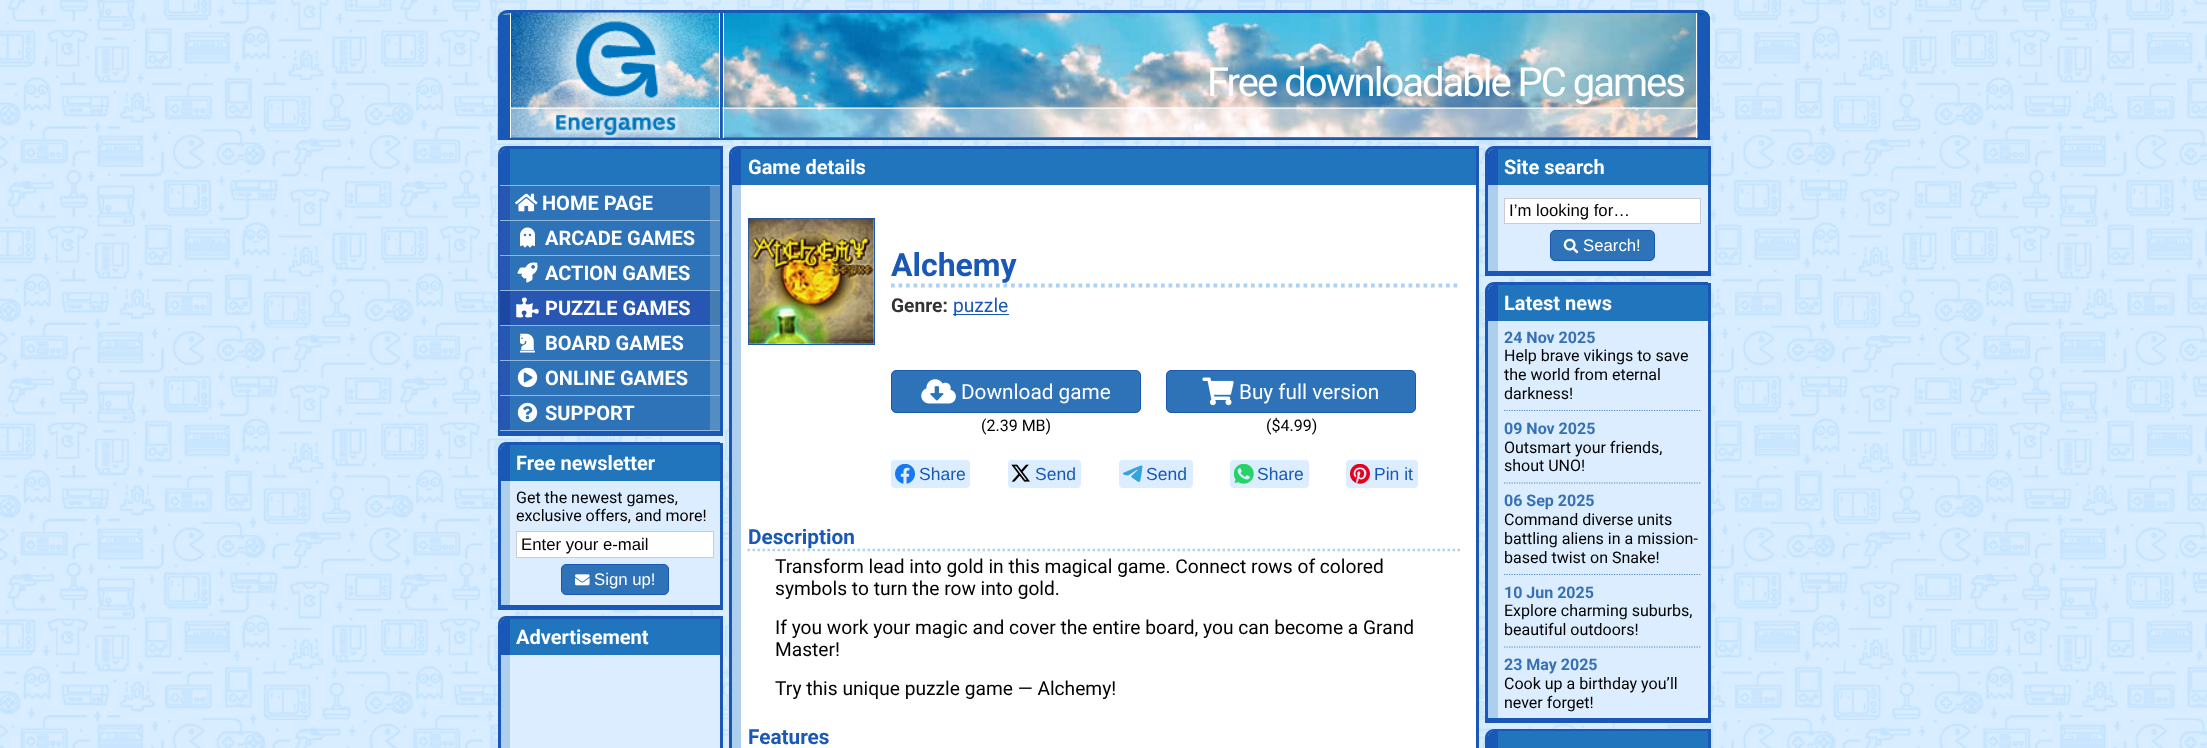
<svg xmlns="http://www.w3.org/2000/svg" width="2207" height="748">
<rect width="100%" height="100%" fill="#fff"/>
<image x="0" y="0" width="2207" height="748" href="media/1.png"/>
<image x="497" y="10" width="1213" height="130" href="media/2.png"/>
<path d="M507 11.5h1194c4 0 7.5 3.5 7.5 7.5v119.5h-1209v-119.5c0-4 3.5-7.5 7.5-7.5z" fill="none" stroke="#1958b7" stroke-width="3"/>
<rect x="1698" y="15" width="9" height="122" fill="#1958b7"/>
<rect x="501" y="15" width="9" height="122" fill="#1958b7"/>
<rect x="720" y="13" width="3" height="125" fill="#1958b7"/>
<image x="511" y="107" width="208" height="31" href="media/3.png"/>
<rect x="719" y="13" width="1" height="125" fill="#fff"/>
<rect x="510" y="13" width="1" height="125" fill="#fff"/>
<image x="511" y="12" width="208" height="126" href="media/4.png"/>
<image x="722" y="107" width="976" height="31" href="media/5.png"/>
<rect x="1696" y="13" width="1" height="125" fill="#fff"/>
<rect x="723" y="13" width="1" height="125" fill="#fff"/>
<text x="1207" y="96" style="font-family:Roboto;font-size:40px;letter-spacing:-2px;fill:#fff">Free downloadable PC games</text>
<rect x="720" y="146" width="3" height="290" fill="#1958b7"/>
<rect x="498" y="431" width="225" height="5" fill="#1958b7"/>
<path d="M506 149h214v36h-220v-30c0-3.5 2.5-6 6-6z" fill="#1958b7"/>
<path d="M506 146h214v39h-222v-30c0-5 3-9 8-9zm0 3h214v36h-220v-30c0-3 3-6 6-6z" fill="#1958b7" fill-rule="evenodd"/>
<rect x="510" y="149" width="210" height="36" fill="#2175bc"/>
<rect x="498" y="185" width="2" height="246" fill="#1958b7"/>
<rect x="500" y="185" width="220" height="246" fill="#91b8dc"/>
<rect x="510" y="186" width="200" height="34" fill="#2e73b8"/>
<rect x="710" y="186" width="10" height="34" fill="#548dc1"/>
<rect x="500" y="186" width="10" height="34" fill="#2756b3"/>
<image x="515" y="193" width="23" height="19" href="media/6.png"/>
<text x="542" y="210" style="font-family:Roboto;font-size:20px;font-weight:bold;fill:#fff">HOME PAGE</text>
<rect x="510" y="221" width="200" height="34" fill="#2e73b8"/>
<rect x="710" y="221" width="10" height="34" fill="#548dc1"/>
<rect x="500" y="221" width="10" height="34" fill="#2756b3"/>
<image x="520" y="227" width="15" height="21" href="media/7.png"/>
<text x="545" y="245" style="font-family:Roboto;font-size:20px;font-weight:bold;fill:#fff">ARCADE GAMES</text>
<rect x="510" y="256" width="200" height="34" fill="#2e73b8"/>
<rect x="710" y="256" width="10" height="34" fill="#548dc1"/>
<rect x="500" y="256" width="10" height="34" fill="#2756b3"/>
<image x="517" y="262" width="21" height="21" href="media/8.png"/>
<text x="545" y="280" style="font-family:Roboto;font-size:20px;font-weight:bold;fill:#fff">ACTION GAMES</text>
<rect x="510" y="291" width="200" height="34" fill="#2756b3"/>
<rect x="710" y="291" width="10" height="34" fill="#467db1"/>
<rect x="500" y="291" width="10" height="34" fill="#1c47a3"/>
<image x="516" y="297" width="23" height="21" href="media/9.png"/>
<text x="545" y="315" style="font-family:Roboto;font-size:20px;font-weight:bold;fill:#fff">PUZZLE GAMES</text>
<rect x="510" y="326" width="200" height="34" fill="#2e73b8"/>
<rect x="710" y="326" width="10" height="34" fill="#548dc1"/>
<rect x="500" y="326" width="10" height="34" fill="#2756b3"/>
<image x="520" y="333" width="15" height="20" href="media/10.png"/>
<text x="545" y="350" style="font-family:Roboto;font-size:20px;font-weight:bold;fill:#fff">BOARD GAMES</text>
<rect x="510" y="361" width="200" height="34" fill="#2e73b8"/>
<rect x="710" y="361" width="10" height="34" fill="#548dc1"/>
<rect x="500" y="361" width="10" height="34" fill="#2756b3"/>
<image x="517" y="367" width="21" height="21" href="media/11.png"/>
<text x="545" y="385" style="font-family:Roboto;font-size:20px;font-weight:bold;fill:#fff">ONLINE GAMES</text>
<rect x="510" y="396" width="200" height="34" fill="#2e73b8"/>
<rect x="710" y="396" width="10" height="34" fill="#548dc1"/>
<rect x="500" y="396" width="10" height="34" fill="#2756b3"/>
<image x="517" y="402" width="21" height="21" href="media/12.png"/>
<text x="545" y="420" style="font-family:Roboto;font-size:20px;font-weight:bold;fill:#fff">SUPPORT</text>
<rect x="720" y="443" width="3" height="167" fill="#1958b7"/>
<rect x="498" y="605" width="225" height="5" fill="#1958b7"/>
<path d="M506 445h214v36h-220v-30c0-3.5 2.5-6 6-6z" fill="#1958b7"/>
<path d="M506 442h214v39h-222v-30c0-5 3-9 8-9zm0 3h214v36h-220v-30c0-3 3-6 6-6z" fill="#1958b7" fill-rule="evenodd"/>
<rect x="510" y="445" width="210" height="36" fill="#2175bc"/>
<text x="516" y="470" style="font-family:Roboto;font-size:20px;font-weight:bold;fill:#fff">Free newsletter</text>
<rect x="501" y="481" width="9" height="124" fill="#adcfed"/>
<rect x="498" y="481" width="3" height="124" fill="#1958b7"/>
<rect x="510" y="481" width="210" height="124" fill="#dbedfe"/>
<text x="516" y="503" style="font-family:Roboto;font-size:16px;fill:#000">Get the newest games,</text>
<text x="516" y="521" style="font-family:Roboto;font-size:16px;fill:#000">exclusive offers, and more!</text>
<rect x="516.5" y="531.5" width="197" height="26" fill="#fff" stroke="#ccc"/>
<text x="521" y="550" style="font-family:Liberation Sans;font-size:16.75px;fill:#000">Enter your e-mail</text>
<rect x="561.5" y="564.5" width="107" height="30" rx="4.5" fill="#2e73b8" stroke="#1958b7"/>
<image x="575" y="574" width="15" height="12" href="media/13.png"/>
<text x="594" y="585" style="font-family:Liberation Sans;font-size:16.75px;fill:#fff">Sign up!</text>
<rect x="720" y="616" width="3" height="132" fill="#1958b7"/>
<path d="M506 619h214v36h-220v-30c0-3.5 2.5-6 6-6z" fill="#1958b7"/>
<path d="M506 616h214v39h-222v-30c0-5 3-9 8-9zm0 3h214v36h-220v-30c0-3 3-6 6-6z" fill="#1958b7" fill-rule="evenodd"/>
<rect x="510" y="619" width="210" height="36" fill="#2175bc"/>
<text x="516" y="644" style="font-family:Roboto;font-size:20px;font-weight:bold;fill:#fff">Advertisement</text>
<rect x="501" y="655" width="9" height="93" fill="#adcfed"/>
<rect x="498" y="655" width="3" height="93" fill="#1958b7"/>
<rect x="510" y="655" width="210" height="93" fill="#dbedfe"/>
<rect x="1476" y="146" width="3" height="602" fill="#1958b7"/>
<path d="M737 149h739v36h-745v-30c0-3.5 2.5-6 6-6z" fill="#1958b7"/>
<path d="M738 146h738v39h-747v-30c0-5 4-9 9-9zm0 3h738v36h-745v-30c0-3 3-6 7-6z" fill="#1958b7" fill-rule="evenodd"/>
<rect x="741" y="149" width="735" height="36" fill="#2175bc"/>
<text x="748" y="174" style="font-family:Roboto;font-size:20px;font-weight:bold;fill:#fff">Game details</text>
<rect x="732" y="185" width="9" height="563" fill="#adcfed"/>
<rect x="729" y="185" width="3" height="563" fill="#1958b7"/>
<rect x="741" y="185" width="735" height="563" fill="#fff"/>
<rect x="748.5" y="218.5" width="126" height="126" fill="none" stroke="#1958b7"/>
<image x="748" y="218" width="126" height="126" href="media/14.png"/>
<path d="M891 285.5h569" fill="none" stroke="#add1ef" stroke-width="3.8" stroke-dasharray="3.75 3.75"/>
<text x="891" y="276" style="font-family:Roboto;font-size:32px;font-weight:bold;fill:#1958b7">Alchemy</text>
<text x="891" y="312" style="font-family:Roboto;font-size:19.2px;font-weight:bold;fill:#333">Genre:</text>
<rect x="953" y="314" width="56" height="1" fill="#1958b7"/>
<text x="953" y="312" style="font-family:Roboto;font-size:19.2px;fill:#1958b7">puzzle</text>
<rect x="891.5" y="370.5" width="249" height="42" rx="4.5" fill="#2e73b8" stroke="#1958b7"/>
<image x="921" y="379" width="35" height="25" href="media/15.png"/>
<text x="961" y="399" style="font-family:Roboto;font-size:20.75px;fill:#fff">Download game</text>
<text x="981" y="431" style="font-family:Roboto;font-size:16px;fill:#000">(2.39 MB)</text>
<rect x="1166.5" y="370.5" width="249" height="42" rx="4.5" fill="#2e73b8" stroke="#1958b7"/>
<image x="1202" y="377" width="32" height="29" href="media/16.png"/>
<text x="1239" y="399" style="font-family:Roboto;font-size:20.75px;fill:#fff">Buy full version</text>
<text x="1266" y="431" style="font-family:Roboto;font-size:16px;fill:#000">($4.99)</text>
<rect x="891" y="460" width="79" height="28" rx="4" fill="#dbedfe"/>
<image x="895" y="464" width="20" height="20" href="media/17.png"/>
<text x="919" y="480" style="font-family:Liberation Sans;font-size:17.5px;fill:#1958b7">Share</text>
<rect x="1008" y="460" width="73" height="28" rx="4" fill="#dbedfe"/>
<image x="1011" y="464" width="19" height="18" href="media/18.png"/>
<text x="1035" y="480" style="font-family:Liberation Sans;font-size:17.5px;fill:#1958b7">Send</text>
<rect x="1119" y="460" width="74" height="28" rx="4" fill="#dbedfe"/>
<image x="1123" y="465" width="20" height="17" href="media/19.png"/>
<text x="1146" y="480" style="font-family:Liberation Sans;font-size:17.5px;fill:#1958b7">Send</text>
<rect x="1230" y="460" width="79" height="28" rx="4" fill="#dbedfe"/>
<image x="1234" y="464" width="20" height="20" href="media/20.png"/>
<text x="1257" y="480" style="font-family:Liberation Sans;font-size:17.5px;fill:#1958b7">Share</text>
<rect x="1346" y="460" width="72" height="28" rx="4" fill="#dbedfe"/>
<image x="1350" y="464" width="20" height="20" href="media/21.png"/>
<text x="1374" y="480" style="font-family:Liberation Sans;font-size:17.5px;fill:#1958b7">Pin it</text>
<path d="M747.5 550h712.5" fill="none" stroke="#add1ef" stroke-width="2.5" stroke-dasharray="2.5 2.5"/>
<text x="748" y="544" style="font-family:Roboto;font-size:20.75px;font-weight:bold;fill:#1958b7">Description</text>
<text x="775" y="573" style="font-family:Roboto;font-size:19.2px;fill:#000">Transform lead into gold in this magical game. Connect rows of colored</text>
<text x="775" y="595" style="font-family:Roboto;font-size:19.2px;fill:#000">symbols to turn the row into gold.</text>
<text x="775" y="634" style="font-family:Roboto;font-size:19.2px;fill:#000">If you work your magic and cover the entire board, you can become a Grand</text>
<text x="775" y="656" style="font-family:Roboto;font-size:19.2px;fill:#000">Master!</text>
<text x="775" y="695" style="font-family:Roboto;font-size:19.2px;fill:#000">Try this unique puzzle game — Alchemy!</text>
<text x="748" y="744" style="font-family:Roboto;font-size:20.75px;font-weight:bold;fill:#1958b7">Features</text>
<rect x="1708" y="146" width="3" height="130" fill="#1958b7"/>
<rect x="1485" y="271" width="225" height="5" fill="#1958b7"/>
<path d="M1494 149h214v36h-220v-30c0-3.5 2.5-6 6-6z" fill="#1958b7"/>
<path d="M1494 146h214v39h-223v-30c0-5 4-9 9-9zm0 3h214v36h-220v-30c0-3 2-6 6-6z" fill="#1958b7" fill-rule="evenodd"/>
<rect x="1498" y="149" width="210" height="36" fill="#2175bc"/>
<text x="1504" y="174" style="font-family:Roboto;font-size:20px;font-weight:bold;fill:#fff">Site search</text>
<rect x="1488" y="185" width="10" height="86" fill="#adcfed"/>
<rect x="1485" y="185" width="3" height="86" fill="#1958b7"/>
<rect x="1498" y="185" width="210" height="86" fill="#dbedfe"/>
<rect x="1504.5" y="198.5" width="196" height="25" fill="#fff" stroke="#ccc"/>
<text x="1509" y="216" style="font-family:Liberation Sans;font-size:16.75px;fill:#000">I’m looking for…</text>
<rect x="1550.5" y="230.5" width="104" height="30" rx="4.5" fill="#2e73b8" stroke="#1958b7"/>
<image x="1563" y="238" width="16" height="16" href="media/22.png"/>
<text x="1583" y="251" style="font-family:Liberation Sans;font-size:16.75px;fill:#fff">Search!</text>
<rect x="1708" y="283" width="3" height="440" fill="#1958b7"/>
<rect x="1485" y="718" width="225" height="5" fill="#1958b7"/>
<path d="M1494 285h214v36h-220v-30c0-3.5 2.5-6 6-6z" fill="#1958b7"/>
<path d="M1494 282h214v39h-223v-30c0-5 4-9 9-9zm0 3h214v36h-220v-30c0-3 2-6 6-6z" fill="#1958b7" fill-rule="evenodd"/>
<rect x="1498" y="285" width="210" height="36" fill="#2175bc"/>
<text x="1504" y="310" style="font-family:Roboto;font-size:20px;font-weight:bold;fill:#fff">Latest news</text>
<rect x="1488" y="321" width="10" height="397" fill="#adcfed"/>
<rect x="1485" y="321" width="3" height="397" fill="#1958b7"/>
<rect x="1498" y="321" width="210" height="397" fill="#dbedfe"/>
<path d="M1504 410.5h197" fill="none" stroke="#588bbe" stroke-width="1.2" stroke-dasharray="1.25 1.25"/>
<text x="1504" y="343" style="font-family:Roboto;font-size:16px;font-weight:bold;fill:#3771b4">24 Nov 2025</text>
<text x="1504" y="361" style="font-family:Roboto;font-size:16px;fill:#000">Help brave vikings to save</text>
<text x="1504" y="380" style="font-family:Roboto;font-size:16px;fill:#000">the world from eternal</text>
<text x="1504" y="399" style="font-family:Roboto;font-size:16px;fill:#000">darkness!</text>
<path d="M1504 483h197" fill="none" stroke="#588bbe" stroke-width="1.2" stroke-dasharray="1.25 1.25"/>
<text x="1504" y="434" style="font-family:Roboto;font-size:16px;font-weight:bold;fill:#3771b4">09 Nov 2025</text>
<text x="1504" y="453" style="font-family:Roboto;font-size:16px;fill:#000">Outsmart your friends,</text>
<text x="1504" y="471" style="font-family:Roboto;font-size:16px;fill:#000">shout UNO!</text>
<path d="M1504 574.5h197" fill="none" stroke="#588bbe" stroke-width="1.2" stroke-dasharray="1.25 1.25"/>
<text x="1504" y="506" style="font-family:Roboto;font-size:16px;font-weight:bold;fill:#3771b4">06 Sep 2025</text>
<text x="1504" y="525" style="font-family:Roboto;font-size:16px;fill:#000">Command diverse units</text>
<text x="1504" y="544" style="font-family:Roboto;font-size:16px;fill:#000">battling aliens in a mission-</text>
<text x="1504" y="563" style="font-family:Roboto;font-size:16px;fill:#000">based twist on Snake!</text>
<path d="M1504 647h197" fill="none" stroke="#588bbe" stroke-width="1.2" stroke-dasharray="1.25 1.25"/>
<text x="1504" y="598" style="font-family:Roboto;font-size:16px;font-weight:bold;fill:#3771b4">10 Jun 2025</text>
<text x="1504" y="616" style="font-family:Roboto;font-size:16px;fill:#000">Explore charming suburbs,</text>
<text x="1504" y="635" style="font-family:Roboto;font-size:16px;fill:#000">beautiful outdoors!</text>
<text x="1504" y="670" style="font-family:Roboto;font-size:16px;font-weight:bold;fill:#3771b4">23 May 2025</text>
<text x="1504" y="689" style="font-family:Roboto;font-size:16px;fill:#000">Cook up a birthday you’ll</text>
<text x="1504" y="708" style="font-family:Roboto;font-size:16px;fill:#000">never forget!</text>
<rect x="1708" y="729" width="3" height="19" fill="#1958b7"/>
<path d="M1494 731h214v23h-220v-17c0-3.5 2.5-6 6-6z" fill="#1958b7"/>
<path d="M1494 729h214v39h-223v-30c0-5 4-9 9-9zm0 2h214v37h-220v-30c0-4 2-7 6-7z" fill="#1958b7" fill-rule="evenodd"/>
<rect x="1498" y="731" width="210" height="17" fill="#2175bc"/>
</svg>
